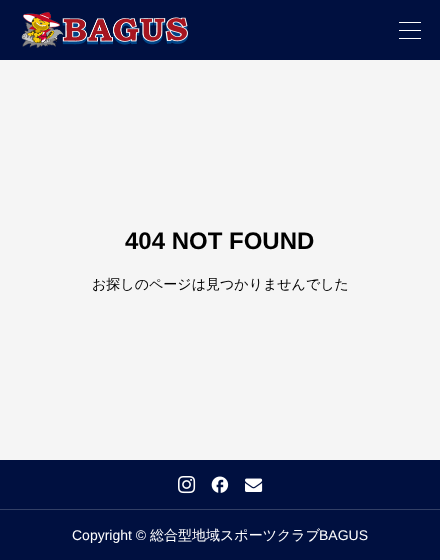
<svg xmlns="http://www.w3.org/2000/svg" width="440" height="560">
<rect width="100%" height="100%" fill="#001040"/>
<image x="21" y="12" width="167" height="36" href="media/1.png"/>
<rect x="399" y="22" width="22" height="1" fill="#fff"/>
<rect x="399" y="30" width="22" height="1" fill="#fff"/>
<rect x="399" y="38" width="22" height="1" fill="#fff"/>
<rect y="60" width="440" height="400" fill="#f5f5f5"/>
<text x="125" y="249" style="font-family:Liberation Sans;font-size:24px;font-weight:bold;fill:#000">404 NOT FOUND</text>
<text x="92" y="289" style="font-family:WenQuanYi Zen Hei;font-size:14px;font-weight:500;fill:#000">お探しのページは見つかりませんでした</text>
<rect y="509" width="440" height="1" fill="#334066"/>
<image x="178" y="476" width="18" height="18" href="media/2.png"/>
<image x="211" y="476" width="18" height="17" href="media/3.png"/>
<image x="245" y="478" width="18" height="14" href="media/4.png"/>
<text x="72" y="540" style="font-family:Liberation Sans;font-size:14px;fill:#fff">Copyright ©</text>
<text x="150" y="540" style="font-family:WenQuanYi Zen Hei;font-size:14px;font-weight:500;fill:#fff">総合型地域スポーツクラブ</text>
<text x="319" y="540" style="font-family:Liberation Sans;font-size:14px;fill:#fff">BAGUS</text>
</svg>
